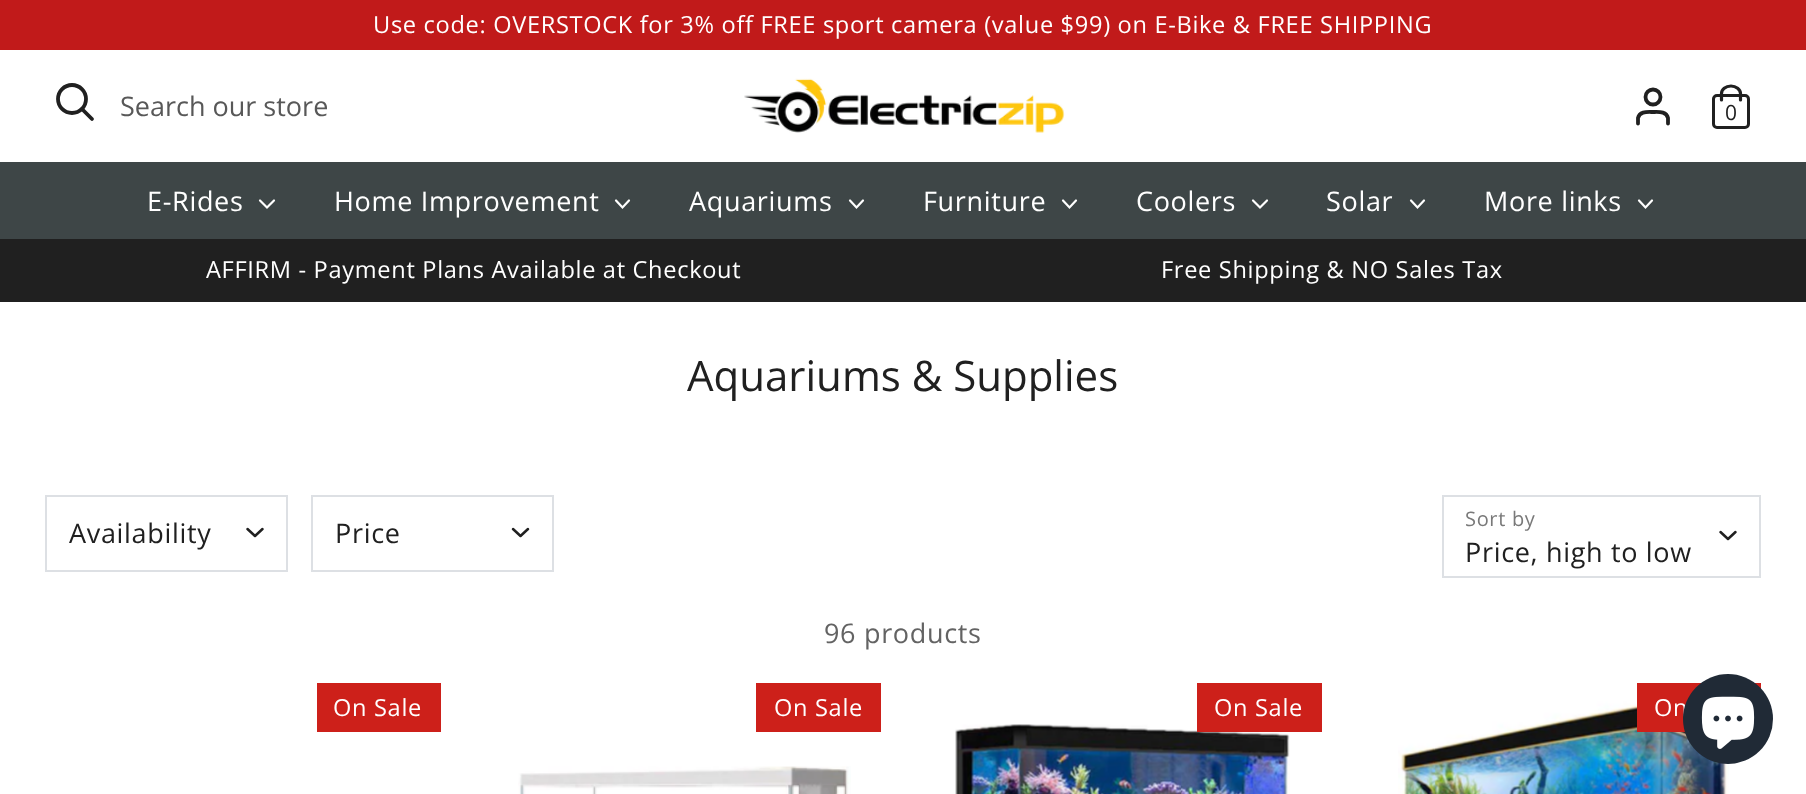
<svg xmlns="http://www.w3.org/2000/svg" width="1806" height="794">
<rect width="100%" height="100%" fill="#fff"/>
<rect width="1806" height="50" fill="#c11a1a"/>
<text x="373" y="33" style="font-family:Open Sans;font-size:23.6px;letter-spacing:0.68px;fill:#fff">Use code: OVERSTOCK for 3% off FREE sport camera (value $99) on E-Bike &amp; FREE SHIPPING</text>
<circle cx="72" cy="99" r="14" fill="none" stroke="#202020" stroke-width="3.8"/>
<path d="M92 119l-10-10" fill="none" stroke="#202020" stroke-width="3.8" stroke-linecap="round"/>
<text x="120" y="116" style="font-family:Open Sans;font-size:27px;fill:#585858">Search our store</text>
<image x="744" y="78" width="321" height="55" href="media/1.png"/>
<path d="M1668 123.5v-5.5c-1.5-7-9.5-6-15-6c-5.5 0-13.5-1-15 6v5.5" fill="none" stroke="#202020" stroke-width="3.8" stroke-linecap="round"/>
<circle cx="1653" cy="97" r="7.5" fill="none" stroke="#202020" stroke-width="3.8"/>
<rect x="1713.5" y="95.5" width="35" height="32" rx="3.5" fill="none" stroke="#202020" stroke-width="3"/>
<path d="M1721.5 100v-6.5c0-4 4-7.5 9.5-7.5c5 0 9.5 3.5 9.5 7.5v6.5" fill="none" stroke="#202020" stroke-width="3.2" stroke-linecap="round"/>
<text x="1725" y="120" style="font-family:Open Sans;font-size:21px;fill:#202020">0</text>
<rect y="162" width="1806" height="77" fill="#3e4647"/>
<text x="147" y="211" style="font-family:Open Sans;font-size:27px;letter-spacing:0.68px;fill:#fff">E-Rides</text>
<path d="M260 200.5l7 7l7-7" fill="none" stroke="#fff" stroke-width="2.2" stroke-linecap="round"/>
<text x="334" y="211" style="font-family:Open Sans;font-size:27px;letter-spacing:0.68px;fill:#fff">Home Improvement</text>
<path d="M616 200.5l6.5 7l6.5-7" fill="none" stroke="#fff" stroke-width="2.2" stroke-linecap="round"/>
<text x="689" y="211" style="font-family:Open Sans;font-size:27px;letter-spacing:0.68px;fill:#fff">Aquariums</text>
<path d="M850 200.5l6.5 7l6.5-7" fill="none" stroke="#fff" stroke-width="2.2" stroke-linecap="round"/>
<text x="923" y="211" style="font-family:Open Sans;font-size:27px;letter-spacing:0.68px;fill:#fff">Furniture</text>
<path d="M1063 200.5l6.5 7l6.5-7" fill="none" stroke="#fff" stroke-width="2.2" stroke-linecap="round"/>
<text x="1136" y="211" style="font-family:Open Sans;font-size:27px;letter-spacing:0.68px;fill:#fff">Coolers</text>
<path d="M1253 200.5l7 7l7-7" fill="none" stroke="#fff" stroke-width="2.2" stroke-linecap="round"/>
<text x="1326" y="211" style="font-family:Open Sans;font-size:27px;letter-spacing:0.68px;fill:#fff">Solar</text>
<path d="M1411 200.5l6.5 7l6.5-7" fill="none" stroke="#fff" stroke-width="2.2" stroke-linecap="round"/>
<text x="1484" y="211" style="font-family:Open Sans;font-size:27px;letter-spacing:0.68px;fill:#fff">More links</text>
<path d="M1639 200.5l6.5 7l6.5-7" fill="none" stroke="#fff" stroke-width="2.2" stroke-linecap="round"/>
<rect y="239" width="1806" height="63" fill="#202020"/>
<text x="206" y="278" style="font-family:Open Sans;font-size:23.6px;letter-spacing:0.68px;fill:#fff">AFFIRM - Payment Plans Available at Checkout</text>
<text x="1161" y="278" style="font-family:Open Sans;font-size:23.6px;letter-spacing:0.68px;fill:#fff">Free Shipping &amp; NO Sales Tax</text>
<text x="687" y="391" style="font-family:Open Sans;font-size:42px;fill:#202020">Aquariums &amp; Supplies</text>
<rect x="46" y="496" width="241" height="75" fill="none" stroke="#dde0e4" stroke-width="2"/>
<text x="69" y="543" style="font-family:Open Sans;font-size:27px;letter-spacing:0.68px;fill:#202020">Availability</text>
<path d="M247.5 529l7.5 7l7.5-7" fill="none" stroke="#202020" stroke-width="2.5" stroke-linecap="round" stroke-linejoin="round"/>
<rect x="312" y="496" width="241" height="75" fill="none" stroke="#dde0e4" stroke-width="2"/>
<text x="335" y="543" style="font-family:Open Sans;font-size:27px;letter-spacing:0.68px;fill:#202020">Price</text>
<path d="M513 529l7.5 7l7.5-7" fill="none" stroke="#202020" stroke-width="2.5" stroke-linecap="round" stroke-linejoin="round"/>
<rect x="1443" y="496" width="317" height="81" fill="none" stroke="#dde0e4" stroke-width="2"/>
<text x="1465" y="526" style="font-family:Open Sans;font-size:20px;letter-spacing:0.68px;fill:#797979">Sort by</text>
<path d="M1720.5 532l7.5 7l7.5-7" fill="none" stroke="#202020" stroke-width="2.5" stroke-linecap="round" stroke-linejoin="round"/>
<text x="1465" y="562" style="font-family:Open Sans;font-size:27px;letter-spacing:0.68px;fill:#202020">Price, high to low</text>
<text x="824" y="643" style="font-family:Open Sans;font-size:27px;letter-spacing:0.68px;fill:#636363">96 products</text>
<rect x="317" y="683" width="124" height="49" fill="#cd201a"/>
<text x="333" y="716" style="font-family:Open Sans;font-size:23.6px;letter-spacing:0.68px;fill:#fff">On Sale</text>
<rect x="756" y="683" width="125" height="49" fill="#cd201a"/>
<text x="774" y="716" style="font-family:Open Sans;font-size:23.6px;letter-spacing:0.68px;fill:#fff">On Sale</text>
<image x="518" y="766" width="333" height="28" href="media/2.png"/>
<image x="955" y="724" width="335" height="70" href="media/3.png"/>
<rect x="1197" y="683" width="125" height="49" fill="#cd201a"/>
<text x="1214" y="716" style="font-family:Open Sans;font-size:23.6px;letter-spacing:0.68px;fill:#fff">On Sale</text>
<image x="1398" y="701" width="331" height="93" href="media/4.png"/>
<rect x="1637" y="683" width="124" height="49" fill="#cd201a"/>
<text x="1654" y="716" style="font-family:Open Sans;font-size:23.6px;letter-spacing:0.68px;fill:#fff">On</text>
<circle cx="1728" cy="719" r="45" fill="#202a36"/>
<image x="1701" y="696" width="54" height="53" href="media/5.png"/>
</svg>
